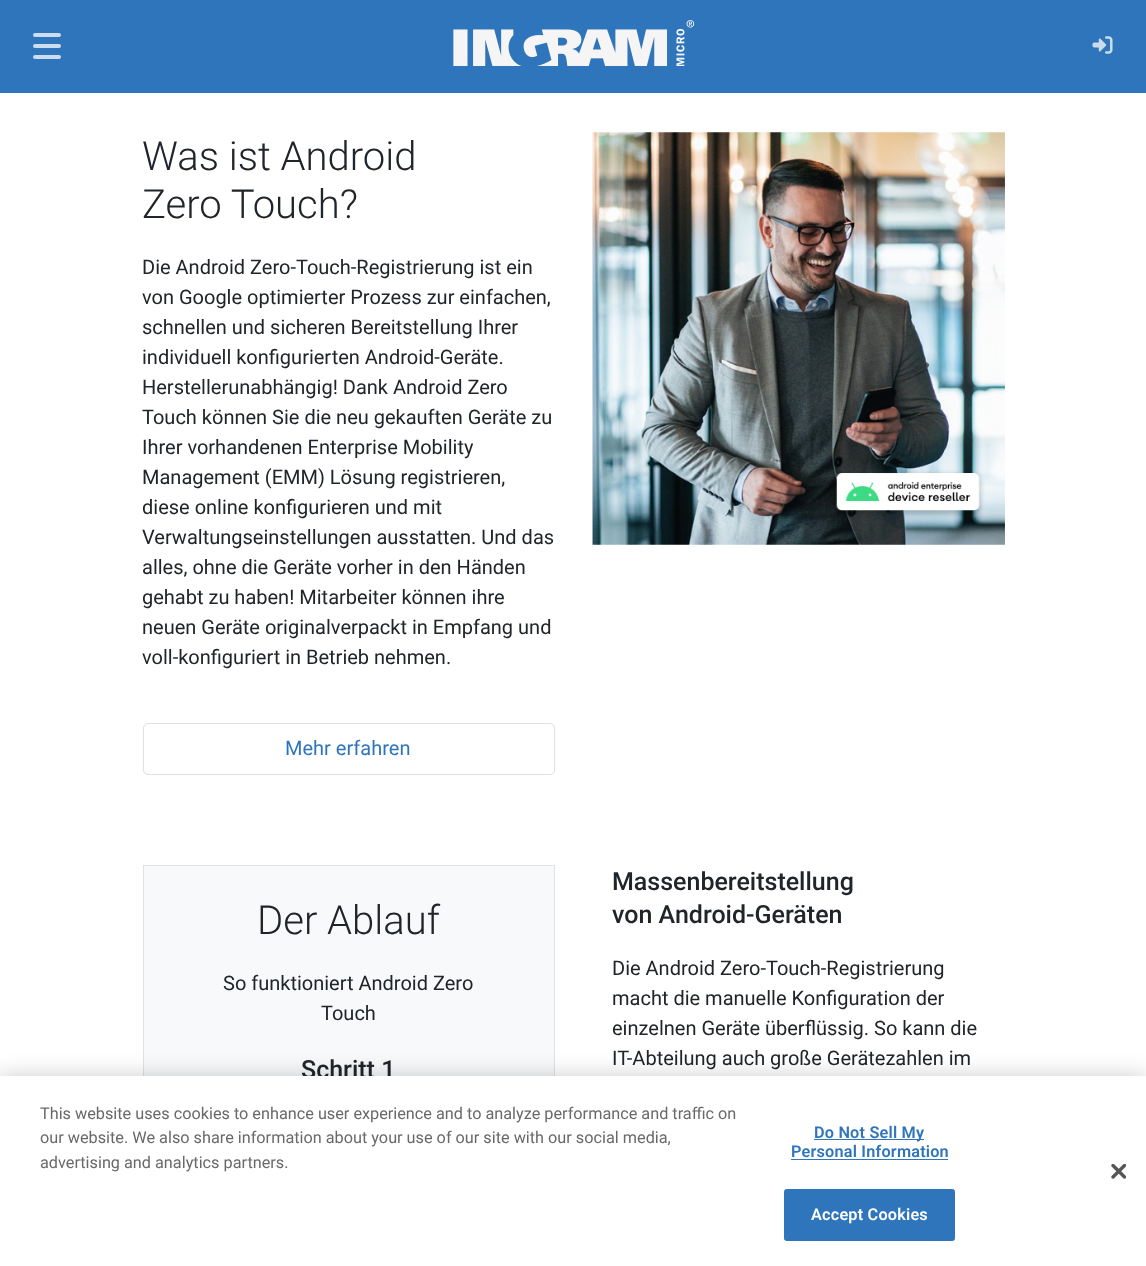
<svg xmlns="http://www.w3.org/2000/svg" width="1146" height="1266">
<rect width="100%" height="100%" fill="#fff"/>
<rect width="1146" height="93" fill="#2f75bb"/>
<rect x="33" y="44" width="28" height="4" rx="2" fill="#cbddee"/>
<rect x="33" y="33" width="28" height="4" rx="2" fill="#cbddee"/>
<rect x="33" y="55" width="28" height="4" rx="2" fill="#cbddee"/>
<image x="453" y="20" width="242" height="46" href="media/1.png"/>
<image x="1092" y="36" width="21" height="18" href="media/2.png"/>
<text x="142" y="170" style="font-family:Roboto;font-size:40px;font-weight:300;fill:#212529">Was ist Android</text>
<text x="142" y="218" style="font-family:Roboto;font-size:40px;font-weight:300;fill:#212529">Zero Touch?</text>
<text x="142" y="274" style="font-family:Roboto;font-size:20px;fill:#212529">Die Android Zero-Touch-Registrierung ist ein</text>
<text x="142" y="304" style="font-family:Roboto;font-size:20px;fill:#212529">von Google optimierter Prozess zur einfachen,</text>
<text x="142" y="334" style="font-family:Roboto;font-size:20px;fill:#212529">schnellen und sicheren Bereitstellung Ihrer</text>
<text x="142" y="364" style="font-family:Roboto;font-size:20px;fill:#212529">individuell konfigurierten Android-Geräte.</text>
<text x="142" y="394" style="font-family:Roboto;font-size:20px;fill:#212529">Herstellerunabhängig! Dank Android Zero</text>
<text x="142" y="424" style="font-family:Roboto;font-size:20px;fill:#212529">Touch können Sie die neu gekauften Geräte zu</text>
<text x="142" y="454" style="font-family:Roboto;font-size:20px;fill:#212529">Ihrer vorhandenen Enterprise Mobility</text>
<text x="142" y="484" style="font-family:Roboto;font-size:20px;fill:#212529">Management (EMM) Lösung registrieren,</text>
<text x="142" y="514" style="font-family:Roboto;font-size:20px;fill:#212529">diese online konfigurieren und mit</text>
<text x="142" y="544" style="font-family:Roboto;font-size:20px;fill:#212529">Verwaltungseinstellungen ausstatten. Und das</text>
<text x="142" y="574" style="font-family:Roboto;font-size:20px;fill:#212529">alles, ohne die Geräte vorher in den Händen</text>
<text x="142" y="604" style="font-family:Roboto;font-size:20px;fill:#212529">gehabt zu haben! Mitarbeiter können ihre</text>
<text x="142" y="634" style="font-family:Roboto;font-size:20px;fill:#212529">neuen Geräte originalverpackt in Empfang und</text>
<text x="142" y="664" style="font-family:Roboto;font-size:20px;fill:#212529">voll-konfiguriert in Betrieb nehmen.</text>
<rect x="143.5" y="723.5" width="411" height="51" rx="4.5" fill="none" stroke="#dfdfdf"/>
<text x="285" y="755" style="font-family:Roboto;font-size:20px;fill:#2f75bb">Mehr erfahren</text>
<image x="592" y="132" width="413" height="413" href="media/3.png"/>
<rect x="144" y="866" width="410" height="210" fill="#f8f9fa"/>
<rect x="143.5" y="865.5" width="411" height="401" fill="none" stroke="#dee2e6"/>
<text x="257" y="934" style="font-family:Roboto;font-size:40px;font-weight:300;fill:#212529">Der Ablauf</text>
<text x="223" y="990" style="font-family:Roboto;font-size:20px;fill:#212529">So funktioniert Android Zero</text>
<text x="321" y="1020" style="font-family:Roboto;font-size:20px;fill:#212529">Touch</text>
<text x="301" y="1078" style="font-family:Roboto;font-size:25px;font-weight:500;fill:#212529">Schritt 1</text>
<text x="612" y="890" style="font-family:Roboto;font-size:25px;font-weight:500;fill:#212529">Massenbereitstellung</text>
<text x="612" y="923" style="font-family:Roboto;font-size:25px;font-weight:500;fill:#212529">von Android-Geräten</text>
<text x="612" y="975" style="font-family:Roboto;font-size:20px;fill:#212529">Die Android Zero-Touch-Registrierung</text>
<text x="612" y="1005" style="font-family:Roboto;font-size:20px;fill:#212529">macht die manuelle Konfiguration der</text>
<text x="612" y="1035" style="font-family:Roboto;font-size:20px;fill:#212529">einzelnen Geräte überflüssig. So kann die</text>
<text x="612" y="1065" style="font-family:Roboto;font-size:20px;fill:#212529">IT-Abteilung auch große Gerätezahlen im</text>
<rect y="1076" width="1146" height="190" fill="#00000033" filter="blur(11px)"/>
<rect y="1076" width="1146" height="190" fill="#fff"/>
<text x="40" y="1119" style="font-family:Roboto;font-size:16.25px;fill:#696969">This website uses cookies to enhance user experience and to analyze performance and traffic on</text>
<text x="40" y="1143" style="font-family:Roboto;font-size:16.25px;fill:#696969">our website. We also share information about your use of our site with our social media,</text>
<text x="40" y="1168" style="font-family:Roboto;font-size:16.25px;fill:#696969">advertising and analytics partners.</text>
<rect x="814" y="1139" width="110" height="1" fill="#2f75bb"/>
<text x="814" y="1138" style="font-family:Roboto;font-size:16.25px;font-weight:600;letter-spacing:0.2px;fill:#2f75bb">Do Not Sell My</text>
<text x="791" y="1157" style="font-family:Roboto;font-size:16.25px;font-weight:600;letter-spacing:0.2px;fill:#2f75bb">Personal Information</text>
<rect x="791" y="1159" width="157" height="1" fill="#2f75bb"/>
<rect x="784.5" y="1189.5" width="170" height="51" rx="2" fill="#2f75bb" stroke="#2f75bb"/>
<text x="811" y="1220" style="font-family:Roboto;font-size:16.25px;font-weight:600;letter-spacing:0.2px;fill:#fff">Accept Cookies</text>
<image x="1111" y="1164" width="15" height="15" href="media/4.png"/>
</svg>
